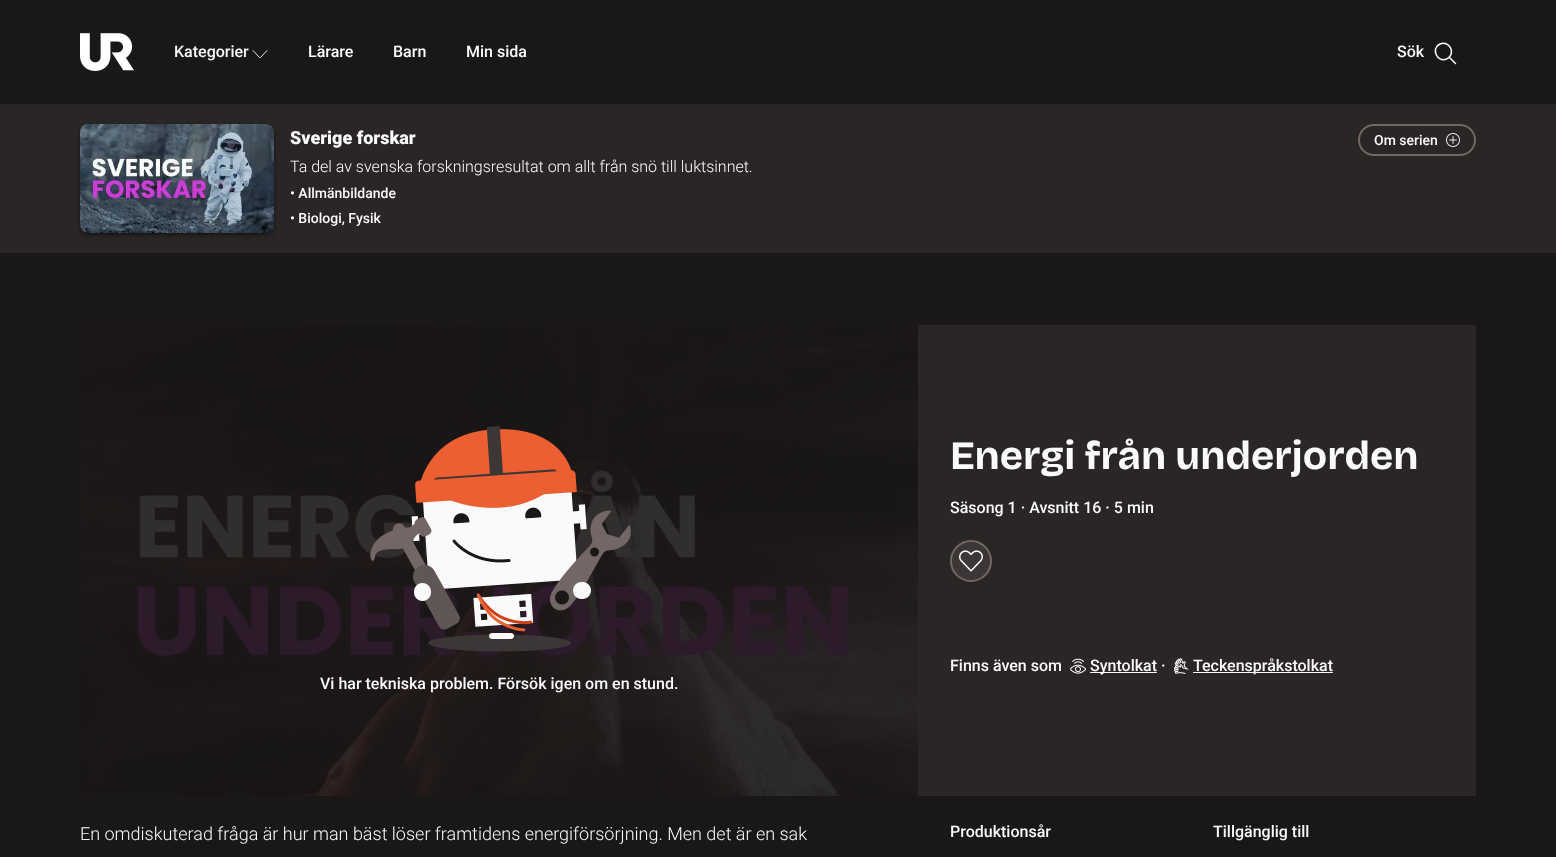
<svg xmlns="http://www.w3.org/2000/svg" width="1556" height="857">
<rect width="100%" height="100%" fill="#1a1717"/>
<image x="80" y="33" width="54" height="38" href="media/1.png"/>
<text x="174" y="57" style="font-family:Roboto;font-size:16px;font-weight:500;fill:#fafafa">Kategorier</text>
<path d="M253 50.5l6.5 7h1l6.5-7" fill="none" stroke="#fafafa" stroke-width="0.9" stroke-linecap="round" stroke-linejoin="round"/>
<text x="308" y="57" style="font-family:Roboto;font-size:16px;font-weight:500;fill:#fafafa">Lärare</text>
<text x="393" y="57" style="font-family:Roboto;font-size:16px;font-weight:500;fill:#fafafa">Barn</text>
<text x="466" y="57" style="font-family:Roboto;font-size:16px;font-weight:500;fill:#fafafa">Min sida</text>
<text x="1397" y="57" style="font-family:Roboto;font-size:16px;font-weight:500;fill:#fafafa">Sök</text>
<path d="M1440 44c10-4 16.5 10.5 6.5 15c-9.5 4-16-11-6.5-15zm9 13l6.5 6.5" fill="none" stroke="#fff" stroke-width="1.5" stroke-linecap="round" stroke-linejoin="round"/>
<rect y="104" width="1556" height="149" fill="#2b2626"/>
<rect x="80" y="126" width="194" height="109" rx="8" fill="#00000080" filter="blur(2px)"/>
<image x="80" y="124" width="194" height="109" href="media/2.png"/>
<text x="290" y="144" style="font-family:Roboto;font-size:18px;font-weight:900;fill:#fafafa">Sverige forskar</text>
<text x="290" y="172" style="font-family:Roboto;font-size:16px;font-weight:300;fill:#fafafa">Ta del av svenska forskningsresultat om allt från snö till luktsinnet.</text>
<text x="290" y="198" style="font-family:Roboto;font-size:14px;font-weight:500;fill:#fafafa">• Allmänbildande</text>
<text x="290" y="223" style="font-family:Roboto;font-size:14px;font-weight:500;fill:#fafafa">• Biologi, Fysik</text>
<rect x="1359" y="125" width="116" height="30" rx="15" fill="none" stroke="#736666" stroke-width="2"/>
<text x="1374" y="145" style="font-family:Roboto;font-size:14px;font-weight:500;fill:#fafafa">Om serien</text>
<image x="1446" y="133" width="14" height="14" href="media/3.png"/>
<rect x="918" y="325" width="558" height="471" fill="#2b2626"/>
<text x="950" y="469" style="font-family:Bricolage Grotesque;font-size:40px;font-weight:800;fill:#fafafa">Energi från underjorden</text>
<text x="950" y="513" style="font-family:Roboto;font-size:16px;font-weight:500;fill:#fafafa">Säsong 1 · Avsnitt 16 · 5 min</text>
<circle cx="971" cy="561" r="20" fill="#3d3636" stroke="#736666" stroke-width="2"/>
<image x="959" y="550" width="24" height="22" href="media/4.png"/>
<text x="950" y="671" style="font-family:Roboto;font-size:16px;font-weight:500;fill:#fafafa">Finns även som</text>
<image x="1070" y="658" width="16" height="16" href="media/5.png"/>
<rect x="1090" y="672" width="67" height="1" fill="#fafafa"/>
<text x="1090" y="671" style="font-family:Roboto;font-size:16px;font-weight:500;fill:#fafafa">Syntolkat ·</text>
<image x="1174" y="658" width="15" height="16" href="media/6.png"/>
<rect x="1193" y="672" width="140" height="1" fill="#fafafa"/>
<text x="1193" y="671" style="font-family:Roboto;font-size:16px;font-weight:500;fill:#fafafa">Teckenspråkstolkat</text>
<image x="80" y="325" width="838" height="471" href="media/7.png"/>
<image x="370" y="426" width="261" height="226" href="media/8.png"/>
<text x="320" y="689" style="font-family:Roboto;font-size:16px;font-weight:500;fill:#fafafa">Vi har tekniska problem. Försök igen om en stund.</text>
<text x="80" y="840" style="font-family:Roboto;font-size:18px;font-weight:300;fill:#fafafa">En omdiskuterad fråga är hur man bäst löser framtidens energiförsörjning. Men det är en sak</text>
<text x="950" y="837" style="font-family:Roboto;font-size:16px;font-weight:500;fill:#fafafa">Produktionsår</text>
<text x="1213" y="837" style="font-family:Roboto;font-size:16px;font-weight:500;fill:#fafafa">Tillgänglig till</text>
</svg>
